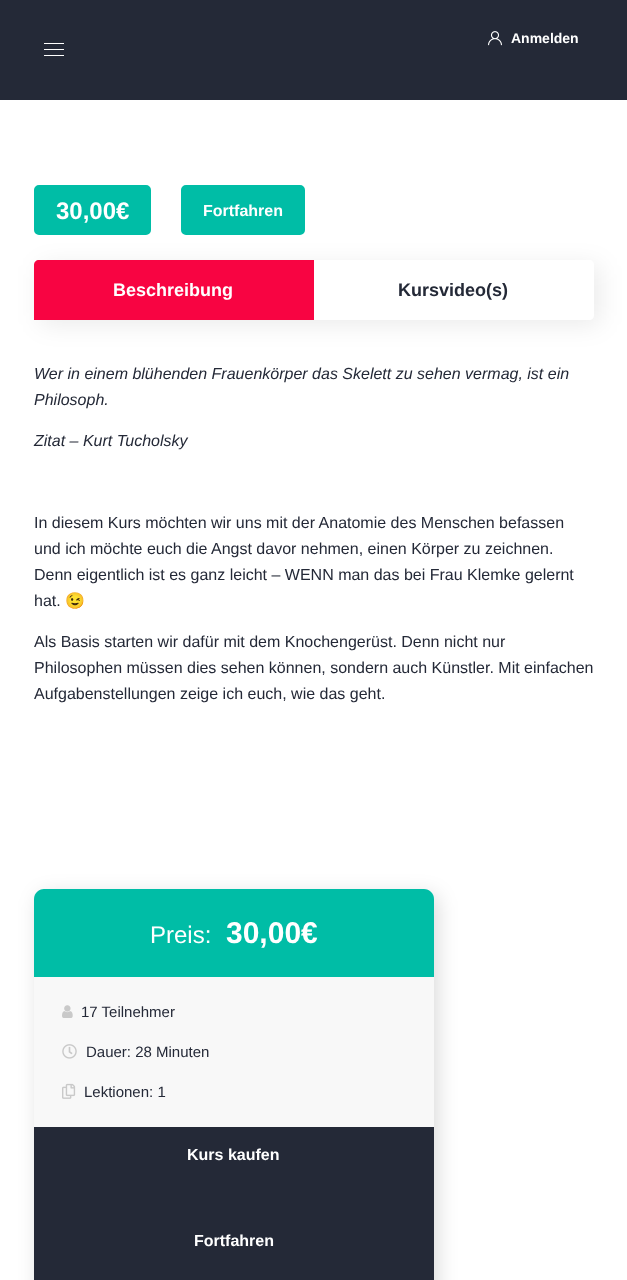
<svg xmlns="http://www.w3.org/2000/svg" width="627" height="1280">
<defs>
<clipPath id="clip1"><path d="M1 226h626v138h-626zm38 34h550c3 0 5 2 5 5v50c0 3-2 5-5 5h-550c-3 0-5-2-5-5v-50c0-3 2-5 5-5z" clip-rule="evenodd"/></clipPath>
</defs>
<rect width="100%" height="100%" fill="#fff"/>
<rect width="627" height="100" fill="#242937"/>
<image x="488" y="31" width="14" height="15" href="media/1.png"/>
<text x="511" y="43" style="font-family:Liberation Sans;font-size:14px;font-weight:bold;fill:#fff">Anmelden</text>
<rect x="44" y="43" width="20" height="1" fill="#fff"/>
<rect x="44" y="49" width="20" height="1" fill="#fff"/>
<rect x="44" y="55" width="20" height="1" fill="#fff"/>
<g clip-path="url(#clip1)">
<rect x="40" y="265" width="560" height="60" rx="5" fill="#00000014" filter="blur(12.5px)"/>
</g>
<rect x="35" y="186" width="115" height="48" rx="4" fill="#00bda6" stroke="#00bda6" stroke-width="2"/>
<text x="56" y="219" style="font-family:Liberation Sans;font-size:24px;font-weight:bold;fill:#fff">30,00€</text>
<rect x="182" y="186" width="122" height="48" rx="4" fill="#00bda6" stroke="#00bda6" stroke-width="2"/>
<text x="203" y="216" style="font-family:Liberation Sans;font-size:16px;font-weight:bold;fill:#fff">Fortfahren</text>
<path d="M39 260h275v60h-280v-55c0-3 2-5 5-5z" fill="#f80442"/>
<text x="113" y="296" style="font-family:Liberation Sans;font-size:18px;font-weight:bold;fill:#fff">Beschreibung</text>
<text x="398" y="296" style="font-family:Liberation Sans;font-size:18px;font-weight:bold;fill:#242937">Kursvideo(s)</text>
<text x="34" y="379" style="font-family:Liberation Sans;font-size:16px;font-style:italic;fill:#242937">Wer in einem blühenden Frauenkörper das Skelett zu sehen vermag, ist ein</text>
<text x="34" y="405" style="font-family:Liberation Sans;font-size:16px;font-style:italic;fill:#242937">Philosoph.</text>
<text x="34" y="446" style="font-family:Liberation Sans;font-size:16px;font-style:italic;fill:#242937">Zitat – Kurt Tucholsky</text>
<text x="34" y="528" style="font-family:Liberation Sans;font-size:16px;fill:#242937">In diesem Kurs möchten wir uns mit der Anatomie des Menschen befassen</text>
<text x="34" y="554" style="font-family:Liberation Sans;font-size:16px;fill:#242937">und ich möchte euch die Angst davor nehmen, einen Körper zu zeichnen.</text>
<text x="34" y="580" style="font-family:Liberation Sans;font-size:16px;fill:#242937">Denn eigentlich ist es ganz leicht – WENN man das bei Frau Klemke gelernt</text>
<text x="34" y="606" style="font-family:Liberation Sans;font-size:16px;fill:#242937">hat.</text>
<text x="65" y="606" style="font-family:Noto Color Emoji;font-size:16px;fill:#242937">😉</text>
<text x="34" y="647" style="font-family:Liberation Sans;font-size:16px;fill:#242937">Als Basis starten wir dafür mit dem Knochengerüst. Denn nicht nur</text>
<text x="34" y="673" style="font-family:Liberation Sans;font-size:16px;fill:#242937">Philosophen müssen dies sehen können, sondern auch Künstler. Mit einfachen</text>
<text x="34" y="699" style="font-family:Liberation Sans;font-size:16px;fill:#242937">Aufgabenstellungen zeige ich euch, wie das geht.</text>
<rect x="38" y="894" width="400" height="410" rx="10" fill="#00000024" filter="blur(10px)"/>
<rect x="34" y="889" width="400" height="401" rx="10" fill="#f8f8f8"/>
<path d="M44 889h380c5.5 0 10 4.5 10 10v78h-400v-78c0-5.5 4.5-10 10-10z" fill="#00bda6"/>
<text x="150" y="943" style="font-family:Liberation Sans;font-size:24px;fill:#fff">Preis:</text>
<text x="226" y="943" style="font-family:Liberation Sans;font-size:30px;font-weight:bold;fill:#fff">30,00€</text>
<image x="62" y="1005" width="11" height="13" href="media/2.png"/>
<text x="81" y="1017" style="font-family:Liberation Sans;font-size:15px;fill:#242937">17 Teilnehmer</text>
<image x="62" y="1044" width="15" height="15" href="media/3.png"/>
<text x="86" y="1057" style="font-family:Liberation Sans;font-size:15px;fill:#242937">Dauer: 28 Minuten</text>
<image x="62" y="1083" width="14" height="16" href="media/4.png"/>
<text x="84" y="1097" style="font-family:Liberation Sans;font-size:15px;fill:#242937">Lektionen: 1</text>
<rect x="34" y="1127" width="400" height="153" fill="#242937"/>
<text x="187" y="1160" style="font-family:Liberation Sans;font-size:16px;font-weight:bold;fill:#fff">Kurs kaufen</text>
<text x="194" y="1246" style="font-family:Liberation Sans;font-size:16px;font-weight:bold;fill:#fff">Fortfahren</text>
</svg>
